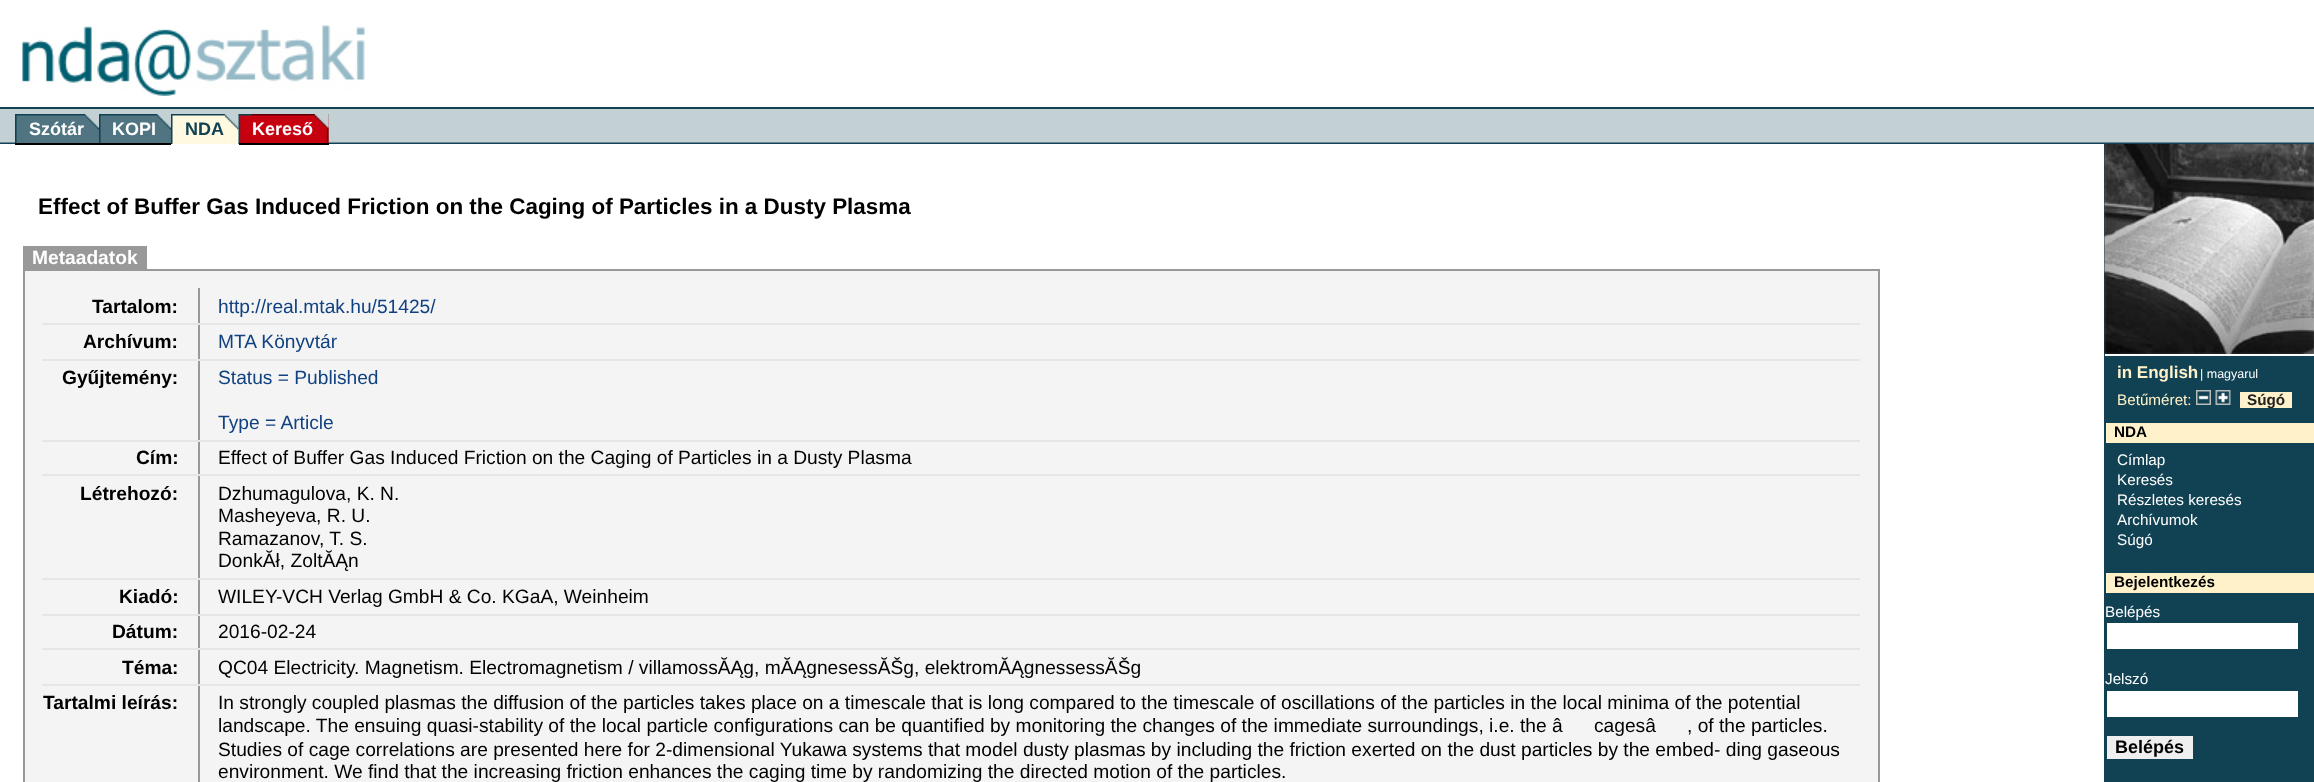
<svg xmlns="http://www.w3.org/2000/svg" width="2314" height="782">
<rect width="100%" height="100%" fill="#fff"/>
<rect x="2104" y="144" width="210" height="638" fill="#114253"/>
<image x="22" y="25" width="343" height="71" href="media/1.png"/>
<rect y="109" width="2314" height="34" fill="#c3d0d4"/>
<image x="0" y="142" width="2314" height="2" href="media/2.png"/>
<rect y="107" width="2314" height="2" fill="#114253"/>
<image x="15" y="114" width="84" height="29" href="media/3.png"/>
<rect x="15" y="143" width="156" height="2" fill="#000"/>
<image x="85" y="114" width="14" height="16" href="media/4.png"/>
<text x="29" y="135" style="font-family:Liberation Sans;font-size:18px;font-weight:bold;fill:#fff">Szótár</text>
<image x="99" y="114" width="72" height="29" href="media/5.png"/>
<image x="157" y="114" width="14" height="16" href="media/6.png"/>
<text x="112" y="135" style="font-family:Liberation Sans;font-size:18px;font-weight:bold;fill:#fff">KOPI</text>
<image x="171" y="114" width="68" height="30" href="media/7.png"/>
<image x="224" y="114" width="15" height="30" href="media/8.png"/>
<text x="185" y="135" style="font-family:Liberation Sans;font-size:18px;font-weight:bold;fill:#114253">NDA</text>
<image x="238" y="114" width="91" height="30" href="media/9.png"/>
<rect x="239" y="143" width="90" height="2" fill="#000"/>
<image x="252" y="114" width="77" height="29" href="media/10.png"/>
<text x="252" y="135" style="font-family:Liberation Sans;font-size:18px;font-weight:bold;fill:#fff">Kereső</text>
<text x="38" y="214" style="font-family:Liberation Sans;font-size:22.45px;font-weight:bold;fill:#000">Effect of Buffer Gas Induced Friction on the Caging of Particles in a Dusty Plasma</text>
<rect x="23" y="246" width="124" height="23" fill="#999"/>
<text x="32" y="264" style="font-family:Liberation Sans;font-size:19.2px;font-weight:bold;fill:#fff">Metaadatok</text>
<rect x="24" y="270" width="1855" height="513" fill="#f4f4f4" stroke="#999" stroke-width="2"/>
<rect x="198" y="684" width="2" height="98" fill="#999"/>
<rect x="198" y="684" width="1662" height="2" fill="#e6e6e6"/>
<rect x="198" y="648" width="2" height="38" fill="#999"/>
<rect x="198" y="648" width="1662" height="2" fill="#e6e6e6"/>
<rect x="198" y="614" width="2" height="36" fill="#999"/>
<rect x="198" y="614" width="1662" height="2" fill="#e6e6e6"/>
<rect x="198" y="578" width="2" height="37" fill="#999"/>
<rect x="198" y="578" width="1662" height="2" fill="#e6e6e6"/>
<rect x="198" y="474" width="2" height="105" fill="#999"/>
<rect x="198" y="474" width="1662" height="2" fill="#e6e6e6"/>
<rect x="198" y="440" width="2" height="36" fill="#999"/>
<rect x="198" y="440" width="1662" height="2" fill="#e6e6e6"/>
<rect x="198" y="359" width="2" height="82" fill="#999"/>
<rect x="198" y="359" width="1662" height="2" fill="#e6e6e6"/>
<rect x="198" y="323" width="2" height="37" fill="#999"/>
<rect x="198" y="323" width="1662" height="2" fill="#e6e6e6"/>
<rect x="198" y="288" width="2" height="36" fill="#999"/>
<rect x="42" y="323" width="158" height="2" fill="#e6e6e6"/>
<text x="92" y="313" style="font-family:Liberation Sans;font-size:19.2px;font-weight:bold;fill:#000">Tartalom:</text>
<text x="218" y="313" style="font-family:Liberation Sans;font-size:19.2px;fill:#104180">http://real.mtak.hu/51425/</text>
<rect x="42" y="359" width="158" height="2" fill="#e6e6e6"/>
<text x="83" y="348" style="font-family:Liberation Sans;font-size:19.2px;font-weight:bold;fill:#000">Archívum:</text>
<text x="218" y="348" style="font-family:Liberation Sans;font-size:19.2px;fill:#104180">MTA Könyvtár</text>
<rect x="42" y="440" width="158" height="2" fill="#e6e6e6"/>
<text x="62" y="384" style="font-family:Liberation Sans;font-size:19.2px;font-weight:bold;fill:#000">Gyűjtemény:</text>
<text x="218" y="384" style="font-family:Liberation Sans;font-size:19.2px;fill:#104180">Status = Published</text>
<text x="218" y="429" style="font-family:Liberation Sans;font-size:19.2px;fill:#104180">Type = Article</text>
<rect x="42" y="474" width="158" height="2" fill="#e6e6e6"/>
<text x="136" y="464" style="font-family:Liberation Sans;font-size:19.2px;font-weight:bold;fill:#000">Cím:</text>
<text x="218" y="464" style="font-family:Liberation Sans;font-size:19.2px;fill:#000">Effect of Buffer Gas Induced Friction on the Caging of Particles in a Dusty Plasma</text>
<rect x="42" y="578" width="158" height="2" fill="#e6e6e6"/>
<text x="80" y="500" style="font-family:Liberation Sans;font-size:19.2px;font-weight:bold;fill:#000">Létrehozó:</text>
<text x="218" y="500" style="font-family:Liberation Sans;font-size:19.2px;fill:#000">Dzhumagulova, K. N.</text>
<text x="218" y="522" style="font-family:Liberation Sans;font-size:19.2px;fill:#000">Masheyeva, R. U.</text>
<text x="218" y="545" style="font-family:Liberation Sans;font-size:19.2px;fill:#000">Ramazanov, T. S.</text>
<text x="218" y="567" style="font-family:Liberation Sans;font-size:19.2px;fill:#000">DonkĂł, ZoltĂĄn</text>
<rect x="42" y="614" width="158" height="2" fill="#e6e6e6"/>
<text x="119" y="603" style="font-family:Liberation Sans;font-size:19.2px;font-weight:bold;fill:#000">Kiadó:</text>
<text x="218" y="603" style="font-family:Liberation Sans;font-size:19.2px;fill:#000">WILEY-VCH Verlag GmbH &amp; Co. KGaA, Weinheim</text>
<rect x="42" y="648" width="158" height="2" fill="#e6e6e6"/>
<text x="112" y="638" style="font-family:Liberation Sans;font-size:19.2px;font-weight:bold;fill:#000">Dátum:</text>
<text x="218" y="638" style="font-family:Liberation Sans;font-size:19.2px;fill:#000">2016-02-24</text>
<rect x="42" y="684" width="158" height="2" fill="#e6e6e6"/>
<text x="122" y="674" style="font-family:Liberation Sans;font-size:19.2px;font-weight:bold;fill:#000">Téma:</text>
<text x="218" y="674" style="font-family:Liberation Sans;font-size:19.2px;fill:#000">QC04 Electricity. Magnetism. Electromagnetism / villamossĂĄg, mĂĄgnesessĂŠg, elektromĂĄgnessessĂŠg</text>
<text x="43" y="709" style="font-family:Liberation Sans;font-size:19.2px;font-weight:bold;fill:#000">Tartalmi leírás:</text>
<text x="218" y="709" style="font-family:Liberation Sans;font-size:19.2px;fill:#000">In strongly coupled plasmas the diffusion of the particles takes place on a timescale that is long compared to the timescale of oscillations of the particles in the local minima of the potential</text>
<text x="218" y="732" style="font-family:Liberation Sans;font-size:19.2px;fill:#000">landscape. The ensuing quasi-stability of the local particle configurations can be quantified by monitoring the changes of the immediate surroundings, i.e. the â</text>
<text x="1594" y="732" style="font-family:Liberation Sans;font-size:19.2px;fill:#000">cagesâ</text>
<text x="1687" y="732" style="font-family:Liberation Sans;font-size:19.2px;fill:#000">, of the particles.</text>
<text x="218" y="756" style="font-family:Liberation Sans;font-size:19.2px;fill:#000">Studies of cage correlations are presented here for 2-dimensional Yukawa systems that model dusty plasmas by including the friction exerted on the dust particles by the embed- ding gaseous</text>
<text x="218" y="778" style="font-family:Liberation Sans;font-size:19.2px;fill:#000">environment. We find that the increasing friction enhances the caging time by randomizing the directed motion of the particles.</text>
<rect x="2105" y="354" width="209" height="2" fill="#fff"/>
<image x="2104" y="144" width="210" height="210" href="media/11.png"/>
<text x="2117" y="378" style="font-family:Liberation Sans;font-size:17px;font-weight:bold;fill:#fff1c9">in English</text>
<text x="2200" y="378" style="font-family:Liberation Sans;font-size:12.5px;fill:#fff">| magyarul</text>
<text x="2117" y="405" style="font-family:Liberation Sans;font-size:15.25px;fill:#fff1c9">Betűméret:</text>
<image x="2196" y="390" width="15" height="15" href="media/12.png"/>
<image x="2215" y="390" width="16" height="15" href="media/13.png"/>
<rect x="2240" y="392" width="52" height="16" fill="#fff1c9"/>
<text x="2247" y="405" style="font-family:Liberation Sans;font-size:15.25px;font-weight:bold;fill:#222">Súgó</text>
<rect x="2106" y="423" width="208" height="20" fill="#fff1c9"/>
<text x="2114" y="437" style="font-family:Liberation Sans;font-size:15.25px;font-weight:bold;fill:#000">NDA</text>
<text x="2117" y="465" style="font-family:Liberation Sans;font-size:15.25px;fill:#fff">Címlap</text>
<text x="2117" y="485" style="font-family:Liberation Sans;font-size:15.25px;fill:#fff">Keresés</text>
<text x="2117" y="505" style="font-family:Liberation Sans;font-size:15.25px;fill:#fff">Részletes keresés</text>
<text x="2117" y="525" style="font-family:Liberation Sans;font-size:15.25px;fill:#fff">Archívumok</text>
<text x="2117" y="545" style="font-family:Liberation Sans;font-size:15.25px;fill:#fff">Súgó</text>
<rect x="2106" y="573" width="208" height="20" fill="#fff1c9"/>
<text x="2114" y="587" style="font-family:Liberation Sans;font-size:15.25px;font-weight:bold;fill:#000">Bejelentkezés</text>
<text x="2105" y="617" style="font-family:Liberation Sans;font-size:15.25px;fill:#fff">Belépés</text>
<rect x="2107" y="623" width="191" height="26" fill="#fff"/>
<text x="2105" y="684" style="font-family:Liberation Sans;font-size:15.25px;fill:#fff">Jelszó</text>
<rect x="2107" y="691" width="191" height="26" fill="#fff"/>
<rect x="2107" y="736" width="86" height="23" fill="#efefef"/>
<text x="2115" y="753" style="font-family:Liberation Sans;font-size:18px;font-weight:bold;fill:#000">Belépés</text>
</svg>
